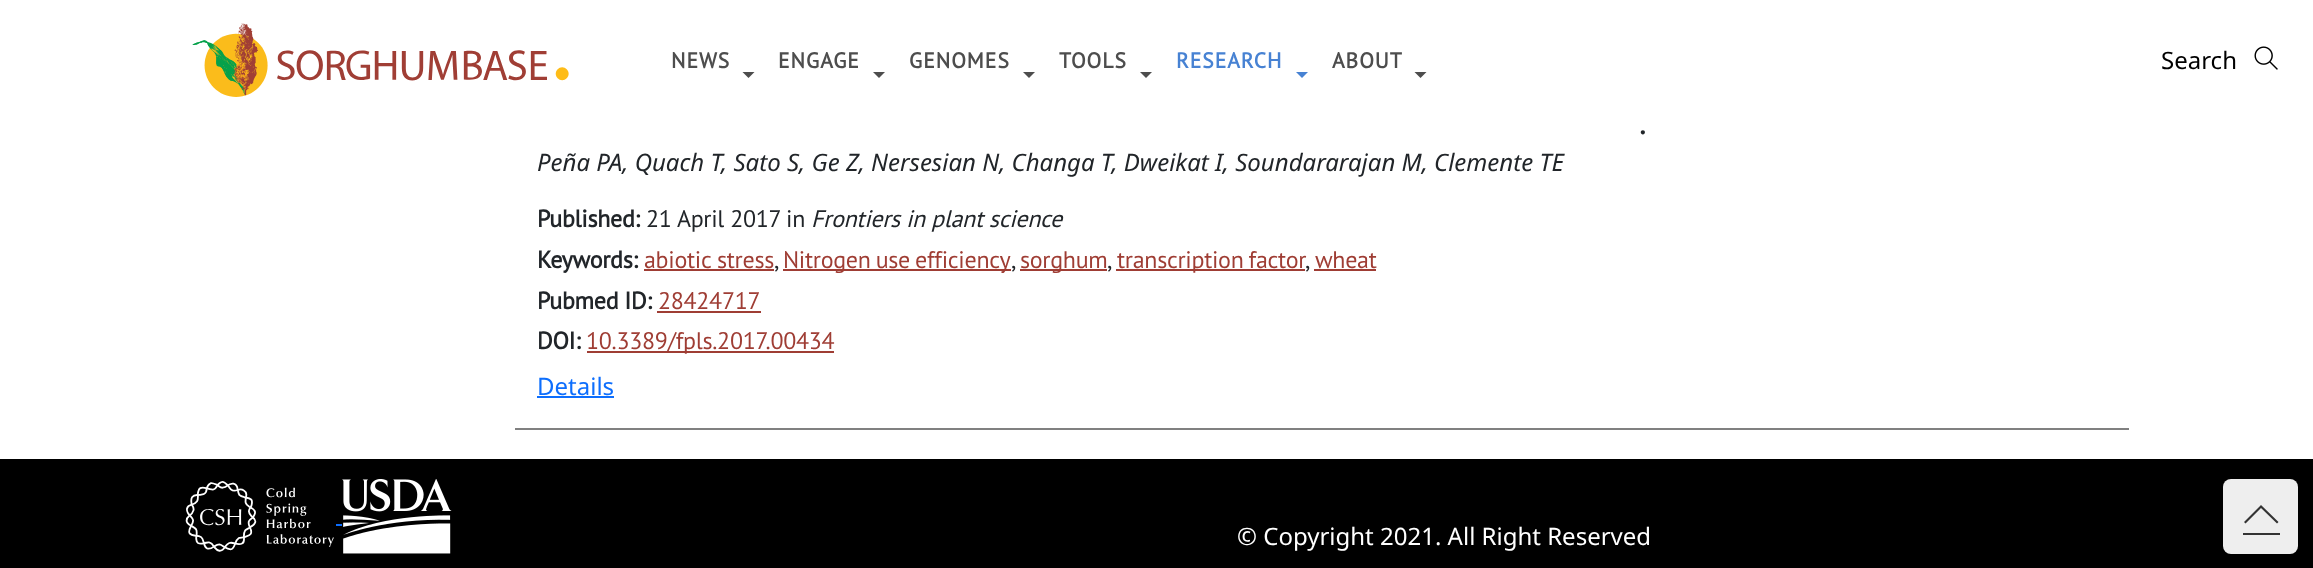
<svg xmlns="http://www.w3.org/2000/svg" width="2313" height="568">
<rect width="100%" height="100%" fill="#fff"/>
<image x="192" y="23" width="377" height="74" href="media/1.png"/>
<text x="671" y="68" style="font-family:PT Sans;font-size:21.5px;font-weight:bold;letter-spacing:1px;fill:#4d4d4d">NEWS</text>
<path d="M742.5 72h12l-6 6z" fill="#4d4d4d"/>
<text x="778" y="68" style="font-family:PT Sans;font-size:21.5px;font-weight:bold;letter-spacing:1px;fill:#4d4d4d">ENGAGE</text>
<path d="M873 72h12l-6 6z" fill="#4d4d4d"/>
<text x="909" y="68" style="font-family:PT Sans;font-size:21.5px;font-weight:bold;letter-spacing:1px;fill:#4d4d4d">GENOMES</text>
<path d="M1023 72h12l-6 6z" fill="#4d4d4d"/>
<text x="1059" y="68" style="font-family:PT Sans;font-size:21.5px;font-weight:bold;letter-spacing:1px;fill:#4d4d4d">TOOLS</text>
<path d="M1140 72h12l-6 6z" fill="#4d4d4d"/>
<text x="1176" y="68" style="font-family:PT Sans;font-size:21.5px;font-weight:bold;letter-spacing:1px;fill:#4782d3">RESEARCH</text>
<path d="M1296 72h12l-6 6z" fill="#4782d3"/>
<text x="1332" y="68" style="font-family:PT Sans;font-size:21.5px;font-weight:bold;letter-spacing:1px;fill:#4d4d4d">ABOUT</text>
<path d="M1414.5 72h12l-6 6z" fill="#4d4d4d"/>
<text x="2161" y="69" style="font-family:Noto Sans;font-size:24px;fill:#000">Search</text>
<image x="2254" y="46" width="24" height="24" href="media/2.png"/>
<rect x="515" y="428" width="1614" height="2" fill="#808080"/>
<text x="1639" y="134" style="font-family:PT Sans;font-size:36px;letter-spacing:-0.3px;fill:#212529">.</text>
<text x="537" y="171" style="font-family:Noto Sans;font-size:24px;font-style:italic;fill:#212529">Peña PA, Quach T, Sato S, Ge Z, Nersesian N, Changa T, Dweikat I, Soundararajan M, Clemente TE</text>
<text x="537" y="227" style="font-family:PT Sans;font-size:24px;font-weight:bold;letter-spacing:-0.3px;fill:#212529">Published:</text>
<text x="646" y="227" style="font-family:PT Sans;font-size:24px;letter-spacing:-0.3px;fill:#212529">21 April 2017 in</text>
<text x="811" y="227" style="font-family:PT Sans;font-size:24px;font-style:italic;letter-spacing:-0.3px;fill:#212529">Frontiers in plant science</text>
<text x="537" y="268" style="font-family:PT Sans;font-size:24px;font-weight:bold;letter-spacing:-0.3px;fill:#212529">Keywords:</text>
<text x="644" y="268" style="font-family:PT Sans;font-size:24px;letter-spacing:-0.3px;fill:#9f3d34">abiotic stress</text>
<text x="774" y="268" style="font-family:PT Sans;font-size:24px;letter-spacing:-0.3px;fill:#212529">,</text>
<rect x="644" y="269" width="130" height="2" fill="#9f3d34"/>
<rect x="783" y="269" width="228" height="2" fill="#9f3d34"/>
<text x="783" y="268" word-spacing="-1" style="font-family:PT Sans;font-size:24px;letter-spacing:-0.3px;fill:#9f3d34">Nitrogen use efficiency</text>
<text x="1011" y="268" style="font-family:PT Sans;font-size:24px;letter-spacing:-0.3px;fill:#212529">,</text>
<rect x="1020" y="269" width="87" height="2" fill="#9f3d34"/>
<text x="1020" y="268" style="font-family:PT Sans;font-size:24px;letter-spacing:-0.3px;fill:#9f3d34">sorghum</text>
<text x="1107" y="268" style="font-family:PT Sans;font-size:24px;letter-spacing:-0.3px;fill:#212529">,</text>
<rect x="1116" y="269" width="189" height="2" fill="#9f3d34"/>
<text x="1117" y="268" word-spacing="-1" style="font-family:PT Sans;font-size:24px;letter-spacing:-0.3px;fill:#9f3d34">transcription factor</text>
<text x="1305" y="268" style="font-family:PT Sans;font-size:24px;letter-spacing:-0.3px;fill:#212529">,</text>
<rect x="1314" y="269" width="62" height="2" fill="#9f3d34"/>
<text x="1315" y="268" style="font-family:PT Sans;font-size:24px;letter-spacing:-0.3px;fill:#9f3d34">wheat</text>
<text x="537" y="309" style="font-family:PT Sans;font-size:24px;font-weight:bold;letter-spacing:-0.3px;fill:#212529">Pubmed ID:</text>
<text x="658" y="309" style="font-family:PT Sans;font-size:24px;letter-spacing:-0.3px;fill:#9f3d34">28424717</text>
<rect x="657" y="311" width="104" height="2" fill="#9f3d34"/>
<text x="537" y="349" style="font-family:PT Sans;font-size:24px;font-weight:bold;letter-spacing:-0.3px;fill:#212529">DOI:</text>
<rect x="587" y="351" width="247" height="2" fill="#9f3d34"/>
<text x="586" y="349" style="font-family:PT Sans;font-size:24px;letter-spacing:-0.3px;fill:#9f3d34">10.3389/fpls.2017.00434</text>
<text x="537" y="395" style="font-family:Noto Sans;font-size:24px;fill:#0d6efd">Details</text>
<rect x="537" y="396" width="77" height="2" fill="#0d6efd"/>
<rect y="459" width="2313" height="109" fill="#000"/>
<image x="185" y="481" width="149" height="71" href="media/3.png"/>
<rect x="336" y="524" width="6" height="2" fill="#0d6efd"/>
<image x="342" y="479" width="110" height="75" href="media/4.png"/>
<text x="1237" y="545" style="font-family:Noto Sans;font-size:24px;fill:#fff">© Copyright 2021. All Right Reserved</text>
<rect x="2223" y="479" width="75" height="75" rx="8" fill="#eee"/>
<path d="M2278.5 522l-1.5 1.5l-16-15.5l-15.5 15.5l-1.5-1.5l17-17z" fill="#333"/>
<rect x="2243" y="533" width="37" height="2" fill="#333"/>
</svg>
